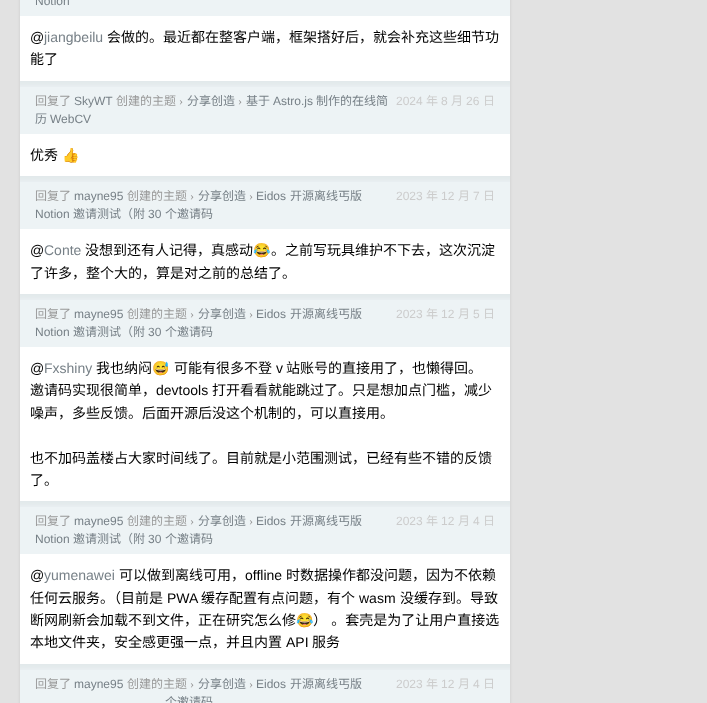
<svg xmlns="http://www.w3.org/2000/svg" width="707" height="703">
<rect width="100%" height="100%" fill="#e2e2e2"/>
<rect x="20" y="-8" width="490" height="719" rx="3" fill="#0000001a" filter="blur(1.5px)"/>
<rect x="20" y="16" width="490" height="648" fill="#fff"/>
<rect x="20" width="490" height="16" fill="#edf3f5"/>
<text x="35" y="5" style="font-family:Liberation Sans;font-size:12px;fill:#778087">Notion</text>
<text x="30" y="42" style="font-family:Liberation Sans;font-size:14px;fill:#000">@</text>
<text x="44" y="42" style="font-family:Liberation Sans;font-size:14px;fill:#778087">jiangbeilu</text>
<text x="107" y="42" style="font-family:Noto Sans CJK SC;font-size:14px;fill:#000">会做的。最近都在整客户端，框架搭好后，就会补充这些细节功</text>
<text x="30" y="64" style="font-family:Noto Sans CJK SC;font-size:14px;fill:#000">能了</text>
<rect x="20" y="81" width="490" height="53" fill="#edf3f5"/>
<image x="20" y="81" width="490" height="6" href="media/1.png"/>
<text x="35" y="105" style="font-family:Noto Sans CJK SC;font-size:12px;fill:#999">回复了</text>
<text x="74" y="105" style="font-family:Liberation Sans;font-size:12px;fill:#778087">SkyWT</text>
<text x="116" y="105" style="font-family:Noto Sans CJK SC;font-size:12px;fill:#999">创建的主题</text>
<text x="179" y="105" style="font-family:Liberation Serif;font-size:12px;fill:#999">›</text>
<text x="187" y="105" style="font-family:Noto Sans CJK SC;font-size:12px;fill:#778087">分享创造</text>
<text x="238" y="105" style="font-family:Liberation Serif;font-size:12px;fill:#999">›</text>
<text x="246" y="105" style="font-family:Noto Sans CJK SC;font-size:12px;fill:#778087">基于</text>
<text x="273" y="105" style="font-family:Liberation Sans;font-size:12px;fill:#778087">Astro.js</text>
<text x="316" y="105" style="font-family:Noto Sans CJK SC;font-size:12px;fill:#778087">制作的在线简</text>
<text x="396" y="105" style="font-family:Liberation Sans;font-size:12px;fill:#ccc">2024</text>
<text x="426" y="105" style="font-family:Noto Sans CJK SC;font-size:12px;fill:#ccc">年</text>
<text x="441" y="105" style="font-family:Liberation Sans;font-size:12px;fill:#ccc">8</text>
<text x="451" y="105" style="font-family:Noto Sans CJK SC;font-size:12px;fill:#ccc">月</text>
<text x="466" y="105" style="font-family:Liberation Sans;font-size:12px;fill:#ccc">26</text>
<text x="483" y="105" style="font-family:Noto Sans CJK SC;font-size:12px;fill:#ccc">日</text>
<text x="35" y="123" style="font-family:Noto Sans CJK SC;font-size:12px;fill:#778087">历</text>
<text x="50" y="123" style="font-family:Liberation Sans;font-size:12px;fill:#778087">WebCV</text>
<text x="30" y="160" style="font-family:Noto Sans CJK SC;font-size:14px;fill:#000">优秀</text>
<text x="62" y="160" style="font-family:Noto Color Emoji;font-size:14px;fill:#000">👍</text>
<rect x="20" y="176" width="490" height="53" fill="#edf3f5"/>
<image x="20" y="176" width="490" height="6" href="media/1.png"/>
<text x="35" y="200" style="font-family:Noto Sans CJK SC;font-size:12px;fill:#999">回复了</text>
<text x="74" y="200" style="font-family:Liberation Sans;font-size:12px;fill:#778087">mayne95</text>
<text x="127" y="200" style="font-family:Noto Sans CJK SC;font-size:12px;fill:#999">创建的主题</text>
<text x="190" y="200" style="font-family:Liberation Serif;font-size:12px;fill:#999">›</text>
<text x="198" y="200" style="font-family:Noto Sans CJK SC;font-size:12px;fill:#778087">分享创造</text>
<text x="249" y="200" style="font-family:Liberation Serif;font-size:12px;fill:#999">›</text>
<text x="256" y="200" style="font-family:Liberation Sans;font-size:12px;fill:#778087">Eidos</text>
<text x="290" y="200" style="font-family:Noto Sans CJK SC;font-size:12px;fill:#778087">开源离线丐版</text>
<text x="396" y="200" style="font-family:Liberation Sans;font-size:12px;fill:#ccc">2023</text>
<text x="426" y="200" style="font-family:Noto Sans CJK SC;font-size:12px;fill:#ccc">年</text>
<text x="441" y="200" style="font-family:Liberation Sans;font-size:12px;fill:#ccc">12</text>
<text x="458" y="200" style="font-family:Noto Sans CJK SC;font-size:12px;fill:#ccc">月</text>
<text x="473" y="200" style="font-family:Liberation Sans;font-size:12px;fill:#ccc">7</text>
<text x="483" y="200" style="font-family:Noto Sans CJK SC;font-size:12px;fill:#ccc">日</text>
<text x="35" y="218" style="font-family:Liberation Sans;font-size:12px;fill:#778087">Notion</text>
<text x="73" y="218" style="font-family:Noto Sans CJK SC;font-size:12px;fill:#778087">邀请测试（附</text>
<text x="148" y="218" style="font-family:Liberation Sans;font-size:12px;fill:#778087">30</text>
<text x="165" y="218" style="font-family:Noto Sans CJK SC;font-size:12px;fill:#778087">个邀请码</text>
<text x="30" y="255" style="font-family:Liberation Sans;font-size:14px;fill:#000">@</text>
<text x="44" y="255" style="font-family:Liberation Sans;font-size:14px;fill:#778087">Conte</text>
<text x="85" y="255" style="font-family:Noto Sans CJK SC;font-size:14px;fill:#000">没想到还有人记得，真感动</text>
<text x="253" y="255" style="font-family:Noto Color Emoji;font-size:14px;fill:#000">😂</text>
<text x="271" y="255" style="font-family:Noto Sans CJK SC;font-size:14px;fill:#000">。之前写玩具维护不下去，这次沉淀</text>
<text x="30" y="278" style="font-family:Noto Sans CJK SC;font-size:14px;fill:#000">了许多，整个大的，算是对之前的总结了。</text>
<rect x="20" y="294" width="490" height="53" fill="#edf3f5"/>
<image x="20" y="294" width="490" height="6" href="media/1.png"/>
<text x="35" y="318" style="font-family:Noto Sans CJK SC;font-size:12px;fill:#999">回复了</text>
<text x="74" y="318" style="font-family:Liberation Sans;font-size:12px;fill:#778087">mayne95</text>
<text x="127" y="318" style="font-family:Noto Sans CJK SC;font-size:12px;fill:#999">创建的主题</text>
<text x="190" y="318" style="font-family:Liberation Serif;font-size:12px;fill:#999">›</text>
<text x="198" y="318" style="font-family:Noto Sans CJK SC;font-size:12px;fill:#778087">分享创造</text>
<text x="249" y="318" style="font-family:Liberation Serif;font-size:12px;fill:#999">›</text>
<text x="256" y="318" style="font-family:Liberation Sans;font-size:12px;fill:#778087">Eidos</text>
<text x="290" y="318" style="font-family:Noto Sans CJK SC;font-size:12px;fill:#778087">开源离线丐版</text>
<text x="396" y="318" style="font-family:Liberation Sans;font-size:12px;fill:#ccc">2023</text>
<text x="426" y="318" style="font-family:Noto Sans CJK SC;font-size:12px;fill:#ccc">年</text>
<text x="441" y="318" style="font-family:Liberation Sans;font-size:12px;fill:#ccc">12</text>
<text x="458" y="318" style="font-family:Noto Sans CJK SC;font-size:12px;fill:#ccc">月</text>
<text x="473" y="318" style="font-family:Liberation Sans;font-size:12px;fill:#ccc">5</text>
<text x="483" y="318" style="font-family:Noto Sans CJK SC;font-size:12px;fill:#ccc">日</text>
<text x="35" y="336" style="font-family:Liberation Sans;font-size:12px;fill:#778087">Notion</text>
<text x="73" y="336" style="font-family:Noto Sans CJK SC;font-size:12px;fill:#778087">邀请测试（附</text>
<text x="148" y="336" style="font-family:Liberation Sans;font-size:12px;fill:#778087">30</text>
<text x="165" y="336" style="font-family:Noto Sans CJK SC;font-size:12px;fill:#778087">个邀请码</text>
<text x="30" y="373" style="font-family:Liberation Sans;font-size:14px;fill:#000">@</text>
<text x="44" y="373" style="font-family:Liberation Sans;font-size:14px;fill:#778087">Fxshiny</text>
<text x="96" y="373" style="font-family:Noto Sans CJK SC;font-size:14px;fill:#000">我也纳闷</text>
<text x="152" y="373" style="font-family:Noto Color Emoji;font-size:14px;fill:#000">😅</text>
<text x="174" y="373" style="font-family:Noto Sans CJK SC;font-size:14px;fill:#000">可能有很多不登</text>
<text x="276" y="373" style="font-family:Liberation Sans;font-size:14px;fill:#000">v</text>
<text x="286" y="373" style="font-family:Noto Sans CJK SC;font-size:14px;fill:#000">站账号的直接用了，也懒得回。</text>
<text x="30" y="395" style="font-family:Noto Sans CJK SC;font-size:14px;fill:#000">邀请码实现很简单，</text>
<text x="156" y="395" style="font-family:Liberation Sans;font-size:14px;fill:#000">devtools</text>
<text x="212" y="395" style="font-family:Noto Sans CJK SC;font-size:14px;fill:#000">打开看看就能跳过了。只是想加点门槛，减少</text>
<text x="30" y="418" style="font-family:Noto Sans CJK SC;font-size:14px;fill:#000">噪声，多些反馈。后面开源后没这个机制的，可以直接用。</text>
<text x="30" y="463" style="font-family:Noto Sans CJK SC;font-size:14px;fill:#000">也不加码盖楼占大家时间线了。目前就是小范围测试，已经有些不错的反馈</text>
<text x="30" y="485" style="font-family:Noto Sans CJK SC;font-size:14px;fill:#000">了。</text>
<rect x="20" y="501" width="490" height="53" fill="#edf3f5"/>
<image x="20" y="501" width="490" height="6" href="media/1.png"/>
<text x="35" y="525" style="font-family:Noto Sans CJK SC;font-size:12px;fill:#999">回复了</text>
<text x="74" y="525" style="font-family:Liberation Sans;font-size:12px;fill:#778087">mayne95</text>
<text x="127" y="525" style="font-family:Noto Sans CJK SC;font-size:12px;fill:#999">创建的主题</text>
<text x="190" y="525" style="font-family:Liberation Serif;font-size:12px;fill:#999">›</text>
<text x="198" y="525" style="font-family:Noto Sans CJK SC;font-size:12px;fill:#778087">分享创造</text>
<text x="249" y="525" style="font-family:Liberation Serif;font-size:12px;fill:#999">›</text>
<text x="256" y="525" style="font-family:Liberation Sans;font-size:12px;fill:#778087">Eidos</text>
<text x="290" y="525" style="font-family:Noto Sans CJK SC;font-size:12px;fill:#778087">开源离线丐版</text>
<text x="396" y="525" style="font-family:Liberation Sans;font-size:12px;fill:#ccc">2023</text>
<text x="426" y="525" style="font-family:Noto Sans CJK SC;font-size:12px;fill:#ccc">年</text>
<text x="441" y="525" style="font-family:Liberation Sans;font-size:12px;fill:#ccc">12</text>
<text x="458" y="525" style="font-family:Noto Sans CJK SC;font-size:12px;fill:#ccc">月</text>
<text x="473" y="525" style="font-family:Liberation Sans;font-size:12px;fill:#ccc">4</text>
<text x="483" y="525" style="font-family:Noto Sans CJK SC;font-size:12px;fill:#ccc">日</text>
<text x="35" y="543" style="font-family:Liberation Sans;font-size:12px;fill:#778087">Notion</text>
<text x="73" y="543" style="font-family:Noto Sans CJK SC;font-size:12px;fill:#778087">邀请测试（附</text>
<text x="148" y="543" style="font-family:Liberation Sans;font-size:12px;fill:#778087">30</text>
<text x="165" y="543" style="font-family:Noto Sans CJK SC;font-size:12px;fill:#778087">个邀请码</text>
<text x="30" y="580" style="font-family:Liberation Sans;font-size:14px;fill:#000">@</text>
<text x="44" y="580" style="font-family:Liberation Sans;font-size:14px;fill:#778087">yumenawei</text>
<text x="119" y="580" style="font-family:Noto Sans CJK SC;font-size:14px;fill:#000">可以做到离线可用，</text>
<text x="245" y="580" style="font-family:Liberation Sans;font-size:14px;fill:#000">offline</text>
<text x="286" y="580" style="font-family:Noto Sans CJK SC;font-size:14px;fill:#000">时数据操作都没问题，因为不依赖</text>
<text x="30" y="603" style="font-family:Noto Sans CJK SC;font-size:14px;fill:#000">任何云服务。（目前是</text>
<text x="167" y="603" style="font-family:Liberation Sans;font-size:14px;fill:#000">PWA</text>
<text x="201" y="603" style="font-family:Noto Sans CJK SC;font-size:14px;fill:#000">缓存配置有点问题，有个</text>
<text x="359" y="603" style="font-family:Liberation Sans;font-size:14px;fill:#000">wasm</text>
<text x="400" y="603" style="font-family:Noto Sans CJK SC;font-size:14px;fill:#000">没缓存到。导致</text>
<text x="30" y="625" style="font-family:Noto Sans CJK SC;font-size:14px;fill:#000">断网刷新会加载不到文件，正在研究怎么修</text>
<text x="296" y="625" style="font-family:Noto Color Emoji;font-size:14px;fill:#000">😂</text>
<text x="313" y="625" word-spacing="1" style="font-family:Noto Sans CJK SC;font-size:14px;fill:#000">） 。套壳是为了让用户直接选</text>
<text x="30" y="647" style="font-family:Noto Sans CJK SC;font-size:14px;fill:#000">本地文件夹，安全感更强一点，并且内置</text>
<text x="286" y="647" style="font-family:Liberation Sans;font-size:14px;fill:#000">API</text>
<text x="312" y="647" style="font-family:Noto Sans CJK SC;font-size:14px;fill:#000">服务</text>
<rect x="20" y="664" width="490" height="39" fill="#edf3f5"/>
<image x="20" y="664" width="490" height="6" href="media/1.png"/>
<text x="35" y="688" style="font-family:Noto Sans CJK SC;font-size:12px;fill:#999">回复了</text>
<text x="74" y="688" style="font-family:Liberation Sans;font-size:12px;fill:#778087">mayne95</text>
<text x="127" y="688" style="font-family:Noto Sans CJK SC;font-size:12px;fill:#999">创建的主题</text>
<text x="190" y="688" style="font-family:Liberation Serif;font-size:12px;fill:#999">›</text>
<text x="198" y="688" style="font-family:Noto Sans CJK SC;font-size:12px;fill:#778087">分享创造</text>
<text x="249" y="688" style="font-family:Liberation Serif;font-size:12px;fill:#999">›</text>
<text x="256" y="688" style="font-family:Liberation Sans;font-size:12px;fill:#778087">Eidos</text>
<text x="290" y="688" style="font-family:Noto Sans CJK SC;font-size:12px;fill:#778087">开源离线丐版</text>
<text x="396" y="688" style="font-family:Liberation Sans;font-size:12px;fill:#ccc">2023</text>
<text x="426" y="688" style="font-family:Noto Sans CJK SC;font-size:12px;fill:#ccc">年</text>
<text x="441" y="688" style="font-family:Liberation Sans;font-size:12px;fill:#ccc">12</text>
<text x="458" y="688" style="font-family:Noto Sans CJK SC;font-size:12px;fill:#ccc">月</text>
<text x="473" y="688" style="font-family:Liberation Sans;font-size:12px;fill:#ccc">4</text>
<text x="483" y="688" style="font-family:Noto Sans CJK SC;font-size:12px;fill:#ccc">日</text>
<text x="165" y="706" style="font-family:Noto Sans CJK SC;font-size:12px;fill:#778087">个邀请码</text>
</svg>
